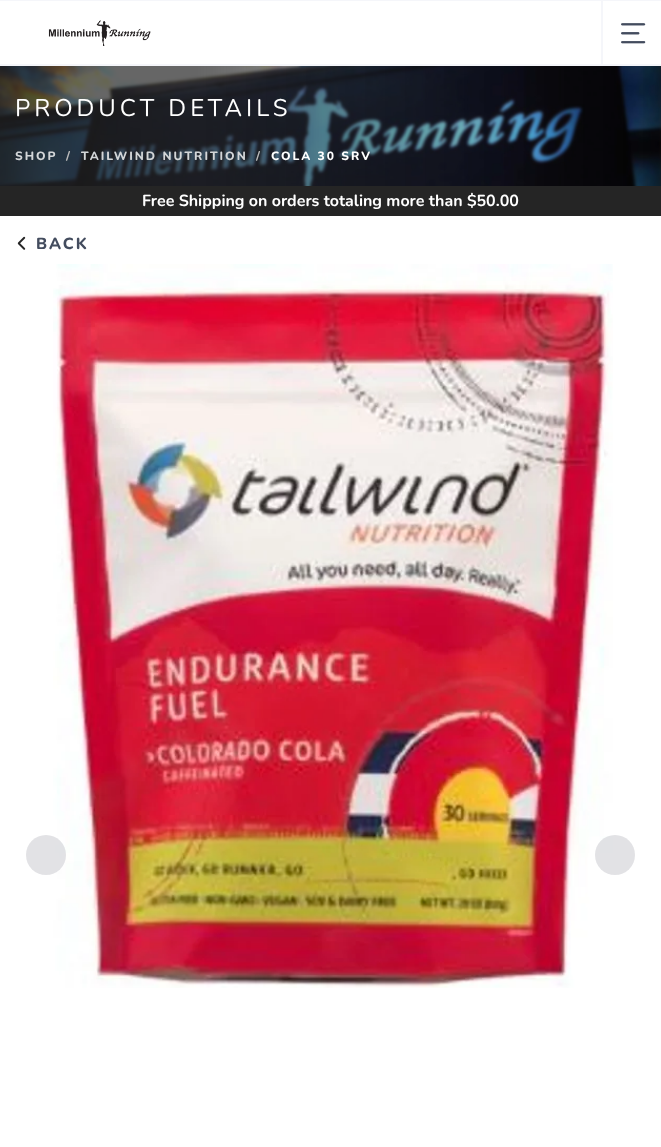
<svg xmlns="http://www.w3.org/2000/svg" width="661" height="1147">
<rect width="100%" height="100%" fill="#fff"/>
<rect width="661" height="1" fill="#f5f6fa"/>
<rect y="64" width="661" height="2" fill="#f5f6fa"/>
<image x="48" y="20" width="103" height="26" href="media/1.png"/>
<rect x="601" y="1" width="2" height="63" fill="#f5f6fa"/>
<image x="621" y="23" width="25" height="21" href="media/2.png"/>
<image x="0" y="66" width="661" height="120" href="media/3.png"/>
<text x="15" y="116" style="font-family:Nunito;font-size:24px;letter-spacing:4px;fill:#fff">PRODUCT DETAILS</text>
<text x="15" y="160" style="font-family:Nunito;font-size:12px;font-weight:800;letter-spacing:2px;fill:#d3d6d8">SHOP</text>
<text x="66" y="160" style="font-family:Nunito;font-size:12px;font-weight:800;letter-spacing:2px;fill:#bbb">/</text>
<text x="81" y="160" style="font-family:Nunito;font-size:12px;font-weight:800;letter-spacing:2px;fill:#d3d6d8">TAILWIND NUTRITION</text>
<text x="256" y="160" style="font-family:Nunito;font-size:12px;font-weight:800;letter-spacing:2px;fill:#bbb">/</text>
<text x="271" y="160" style="font-family:Nunito;font-size:12px;font-weight:800;letter-spacing:2px;fill:#fff">COLA 30 SRV</text>
<rect y="186" width="661" height="30" fill="#252525"/>
<text x="142" y="206" style="font-family:Nunito;font-size:16px;font-weight:bold;fill:#fff">Free Shipping on orders totaling more than $50.00</text>
<image x="17" y="236" width="9" height="14" href="media/4.png"/>
<text x="36" y="249" style="font-family:Nunito;font-size:16px;font-weight:800;letter-spacing:2px;fill:#434c5e">BACK</text>
<image x="53" y="264" width="560" height="724" href="media/5.png"/>
<circle cx="46" cy="855" r="20" fill="#d2d2d7a3"/>
<circle cx="615" cy="855" r="20" fill="#d2d2d7a3"/>
</svg>
